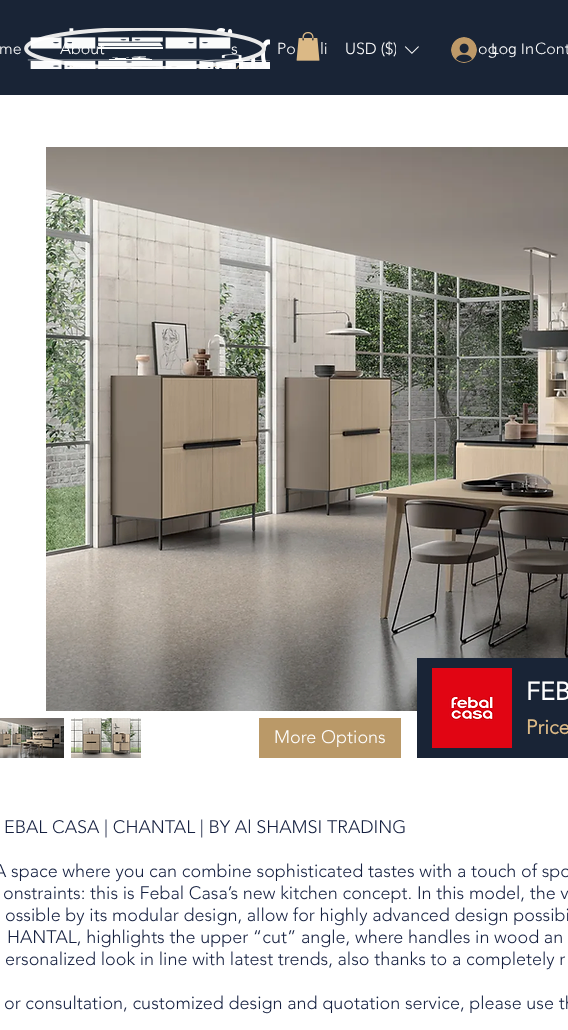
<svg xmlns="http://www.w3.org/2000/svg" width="568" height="1030">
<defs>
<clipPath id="clip1"><rect x="345" y="38" width="51" height="23"/></clipPath>
</defs>
<rect width="100%" height="100%" fill="#fff"/>
<rect width="568" height="95" fill="#192436"/>
<image x="24" y="28" width="246" height="41" href="media/1.png"/>
<text x="-1" y="54" style="font-family:'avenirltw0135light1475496';font-size:16px;font-weight:300;fill:#fff">me</text>
<text x="60" y="54" style="font-family:'avenirltw0135light1475496';font-size:16px;font-weight:300;fill:#fff">About</text>
<text x="231" y="54" style="font-family:'avenirltw0135light1475496';font-size:16px;font-weight:300;fill:#fff">s</text>
<text x="277" y="54" style="font-family:'avenirltw0135light1475496';font-size:16px;font-weight:300;fill:#fff">Po</text>
<text x="320" y="54" style="font-family:'avenirltw0135light1475496';font-size:16px;font-weight:300;fill:#fff">li</text>
<text x="478" y="54" style="font-family:'avenirltw0135light1475496';font-size:16px;font-weight:300;fill:#fff">og</text>
<text x="535" y="54" style="font-family:'avenirltw0135light1475496';font-size:16px;font-weight:300;fill:#fff">Cont</text>
<image x="296" y="32" width="24" height="29" href="media/2.png"/>
<g clip-path="url(#clip1)">
<text x="345" y="54" style="font-family:'avenirltw0135light1475496';font-size:16px;font-weight:300;fill:#fff">USD ($)</text>
</g>
<image x="404" y="46" width="15" height="8" href="media/3.png"/>
<image x="451" y="37" width="26" height="26" href="media/4.png"/>
<text x="491" y="54" style="font-family:'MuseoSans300';font-size:15px;fill:#fff">Log In</text>
<image x="46" y="147" width="522" height="564" href="media/5.png"/>
<image x="0" y="718" width="64" height="40" href="media/6.png"/>
<image x="71" y="718" width="70" height="40" href="media/7.png"/>
<rect x="259" y="718" width="142" height="40" fill="#ba9968"/>
<text x="274" y="743" style="font-family:'avenirltw0135light1475496';font-size:18px;font-weight:300;fill:#fff">More Options</text>
<rect x="417" y="658" width="151" height="100" fill="#192436"/>
<image x="432" y="668" width="80" height="80" href="media/8.png"/>
<text x="526" y="700" style="font-family:'avenirltw0135light1475496';font-size:25px;font-weight:bold;fill:#fff">FEB</text>
<text x="526" y="734" style="font-family:'avenirltw0135light1475496';font-size:20px;font-weight:bold;fill:#dbb986">Price</text>
<text x="4" y="833" style="font-family:'avenirltw0135light1475496';font-size:18px;font-weight:300;fill:#152040">EBAL CASA | CHANTAL | BY Al SHAMSI TRADING</text>
<text x="-6" y="877" style="font-family:'avenirltw0135light1475496';font-size:18px;font-weight:300;fill:#152040">A space where you can combine sophisticated tastes with a touch of spo</text>
<text x="3" y="899" style="font-family:'avenirltw0135light1475496';font-size:18px;font-weight:300;fill:#152040">onstraints: this is Febal Casa’s new kitchen concept. In this model, the v</text>
<text x="5" y="921" style="font-family:'avenirltw0135light1475496';font-size:18px;font-weight:300;fill:#152040">ossible by its modular design, allow for highly advanced design possibi</text>
<text x="7" y="943" style="font-family:'avenirltw0135light1475496';font-size:18px;font-weight:300;fill:#152040">HANTAL, highlights the upper “cut” angle, where handles in wood an</text>
<text x="5" y="965" style="font-family:'avenirltw0135light1475496';font-size:18px;font-weight:300;fill:#152040">ersonalized look in line with latest trends, also thanks to a completely r</text>
<text x="4" y="1009" style="font-family:'avenirltw0135light1475496';font-size:18px;font-weight:300;fill:#152040">or consultation, customized design and quotation service, please use th</text>
</svg>
